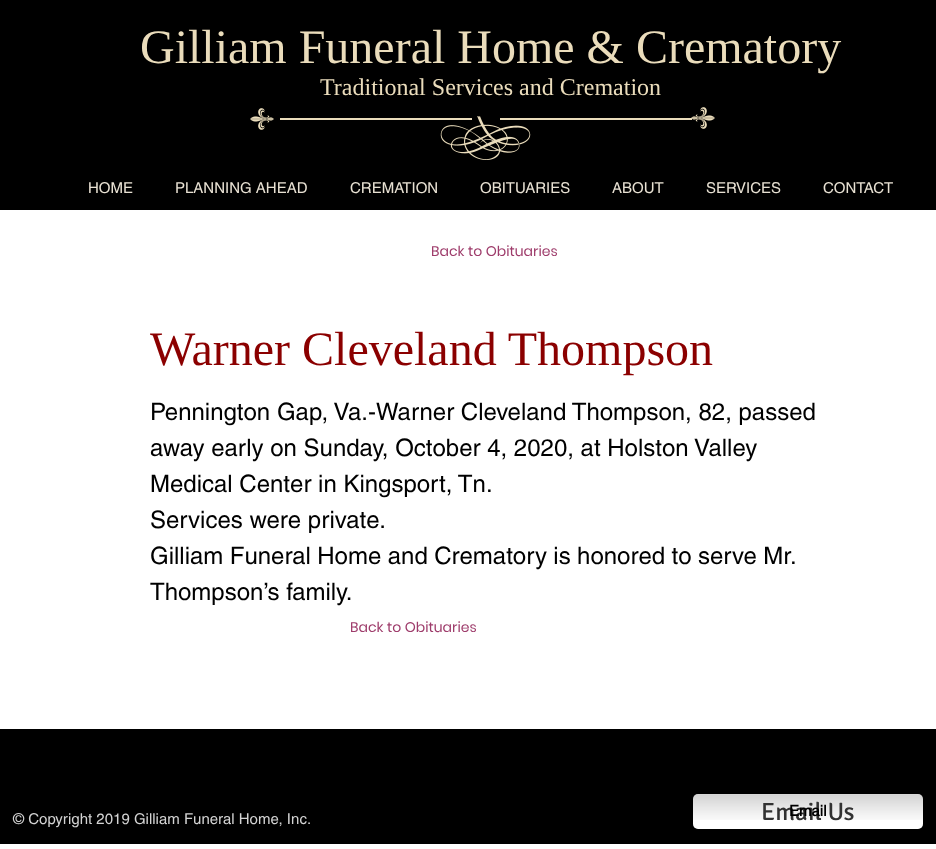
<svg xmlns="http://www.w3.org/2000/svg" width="936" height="849">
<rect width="100%" height="100%" fill="#fff"/>
<rect width="936" height="210" fill="#000"/>
<text x="140" y="63" style="font-family:Liberation Serif;font-size:48px;fill:#eadcbb">Gilliam Funeral Home &amp; Crematory</text>
<text x="320" y="95" style="font-family:Liberation Serif;font-size:24px;fill:#eadcbb">Traditional Services and Cremation</text>
<image x="250" y="108" width="24" height="22" href="media/1.png"/>
<image x="440" y="116" width="91" height="44" href="media/2.png"/>
<rect x="280" y="118" width="192" height="2" fill="#eadcbb"/>
<image x="691" y="107" width="24" height="22" href="media/3.png"/>
<rect x="500" y="118" width="192" height="2" fill="#eadcbb"/>
<text x="88" y="193" style="font-family:helvetica;font-size:15px;fill:#e8e1d3">HOME</text>
<text x="175" y="193" style="font-family:helvetica;font-size:15px;fill:#e8e1d3">PLANNING AHEAD</text>
<text x="350" y="193" style="font-family:helvetica;font-size:15px;fill:#e8e1d3">CREMATION</text>
<text x="480" y="193" style="font-family:helvetica;font-size:15px;fill:#e8e1d3">OBITUARIES</text>
<text x="612" y="193" style="font-family:helvetica;font-size:15px;fill:#e8e1d3">ABOUT</text>
<text x="706" y="193" style="font-family:helvetica;font-size:15px;fill:#e8e1d3">SERVICES</text>
<text x="823" y="193" style="font-family:helvetica;font-size:15px;fill:#e8e1d3">CONTACT</text>
<text x="431" y="256" style="font-family:Poppins;font-size:14px;fill:#9e3c6b">Back to Obituaries</text>
<text x="150" y="365" style="font-family:Liberation Serif;font-size:48px;fill:#8b0000">Warner Cleveland Thompson</text>
<text x="150" y="420" style="font-family:helvetica;font-size:24px;fill:#000">Pennington Gap, Va.-Warner Cleveland Thompson, 82, passed</text>
<text x="150" y="456" style="font-family:helvetica;font-size:24px;fill:#000">away early on Sunday, October 4, 2020, at Holston Valley</text>
<text x="150" y="492" style="font-family:helvetica;font-size:24px;fill:#000">Medical Center in Kingsport, Tn.</text>
<text x="150" y="528" style="font-family:helvetica;font-size:24px;fill:#000">Services were private.</text>
<text x="150" y="564" word-spacing="-0.25" style="font-family:helvetica;font-size:24px;fill:#000">Gilliam Funeral Home and Crematory is honored to serve Mr.</text>
<text x="150" y="600" style="font-family:helvetica;font-size:24px;fill:#000">Thompson’s family.</text>
<text x="350" y="632" style="font-family:Poppins;font-size:14px;fill:#9e3c6b">Back to Obituaries</text>
<rect y="729" width="936" height="115" fill="#000"/>
<rect x="693" y="794" width="230" height="35" rx="5" fill="#fff"/>
<image x="693" y="794" width="230" height="26" href="media/4.png"/>
<image x="693" y="825" width="230" height="4" href="media/5.png"/>
<text x="761" y="820" style="font-family:Signika;font-size:25px;fill:#323232">Email Us</text>
<text x="13" y="824" style="font-family:helvetica;font-size:15px;fill:#d3d3d3">© Copyright 2019 Gilliam Funeral Home, Inc.</text>
<text x="789" y="816" style="font-family:helvetica;font-size:15px;font-weight:bold;fill:#000">Email</text>
</svg>
